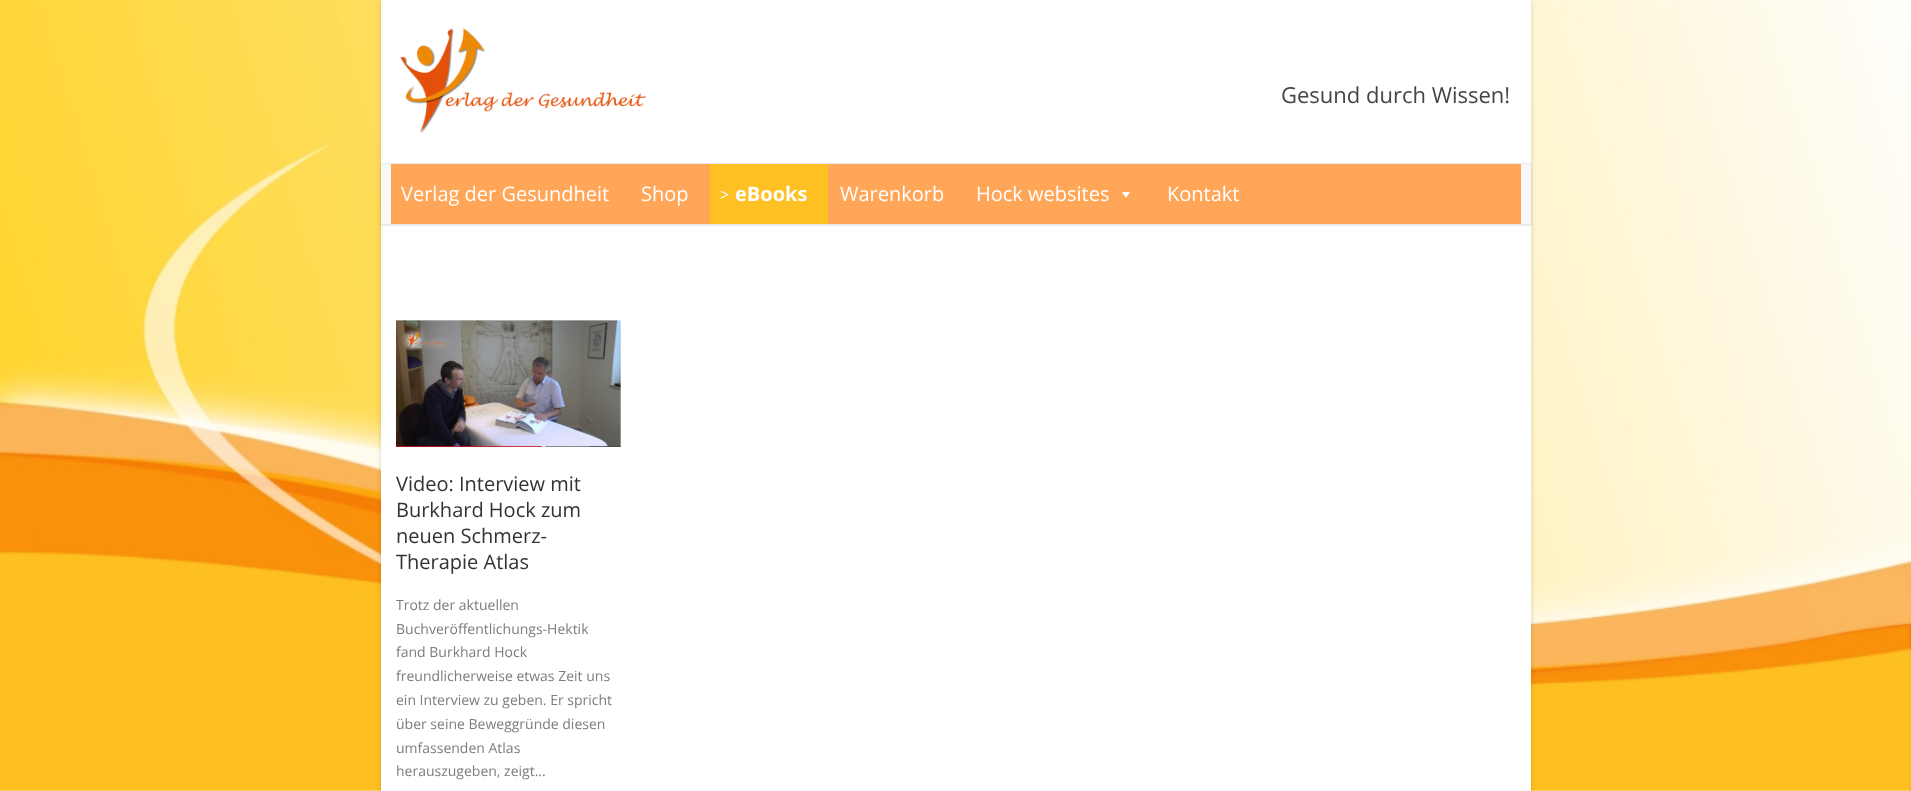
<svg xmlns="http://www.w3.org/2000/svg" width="1911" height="791">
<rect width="100%" height="100%" fill="#fff"/>
<image x="0" y="0" width="1911" height="791" href="media/1.png"/>
<rect x="381" y="1" width="1150" height="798" fill="#00000026" filter="blur(2.5px)"/>
<rect x="381" width="1150" height="791" fill="#fff"/>
<image x="400" y="28" width="246" height="106" href="media/2.png"/>
<text x="1281" y="103" style="font-family:Open Sans;font-size:22px;fill:#454545">Gesund durch Wissen!</text>
<rect x="381" y="164" width="1150" height="61" fill="#00000026" filter="blur(1px)"/>
<rect x="381" y="164" width="1150" height="60" fill="#f9f9f9"/>
<rect x="381" y="163" width="1150" height="1" fill="#ececec"/>
<rect x="391" y="164" width="1130" height="60" fill="#ffa659"/>
<text x="401" y="201" style="font-family:Open Sans;font-size:20px;fill:#fff">Verlag der Gesundheit</text>
<text x="641" y="201" style="font-family:Open Sans;font-size:20px;fill:#fff">Shop</text>
<rect x="710" y="164" width="118" height="60" fill="#fec022"/>
<text x="720" y="200" style="font-family:Liberation Serif;font-size:16px;font-weight:bold;fill:#fff">&gt;</text>
<text x="735" y="201" style="font-family:Open Sans;font-size:20px;font-weight:bold;fill:#fff">eBooks</text>
<text x="840" y="201" style="font-family:Open Sans;font-size:20px;fill:#fff">Warenkorb</text>
<text x="976" y="201" style="font-family:Open Sans;font-size:20px;fill:#fff">Hock websites</text>
<path d="M1130 192l-4 6l-4-6z" fill="#fff"/>
<text x="1167" y="201" style="font-family:Open Sans;font-size:20px;fill:#fff">Kontakt</text>
<image x="396" y="320" width="225" height="127" href="media/3.png"/>
<text x="396" y="491" style="font-family:Open Sans;font-size:20px;fill:#333">Video: Interview mit</text>
<text x="396" y="517" style="font-family:Open Sans;font-size:20px;fill:#333">Burkhard Hock zum</text>
<text x="396" y="543" style="font-family:Open Sans;font-size:20px;fill:#333">neuen Schmerz-</text>
<text x="396" y="569" style="font-family:Open Sans;font-size:20px;fill:#333">Therapie Atlas</text>
<text x="396" y="610" style="font-family:Open Sans;font-size:14px;fill:#7c7c7c">Trotz der aktuellen</text>
<text x="396" y="634" style="font-family:Open Sans;font-size:14px;fill:#7c7c7c">Buchveröffentlichungs-Hektik</text>
<text x="396" y="657" style="font-family:Open Sans;font-size:14px;fill:#7c7c7c">fand Burkhard Hock</text>
<text x="396" y="681" style="font-family:Open Sans;font-size:14px;fill:#7c7c7c">freundlicherweise etwas Zeit uns</text>
<text x="396" y="705" style="font-family:Open Sans;font-size:14px;fill:#7c7c7c">ein Interview zu geben. Er spricht</text>
<text x="396" y="729" style="font-family:Open Sans;font-size:14px;fill:#7c7c7c">über seine Beweggründe diesen</text>
<text x="396" y="753" style="font-family:Open Sans;font-size:14px;fill:#7c7c7c">umfassenden Atlas</text>
<text x="396" y="776" style="font-family:Open Sans;font-size:14px;fill:#7c7c7c">herauszugeben, zeigt...</text>
</svg>
